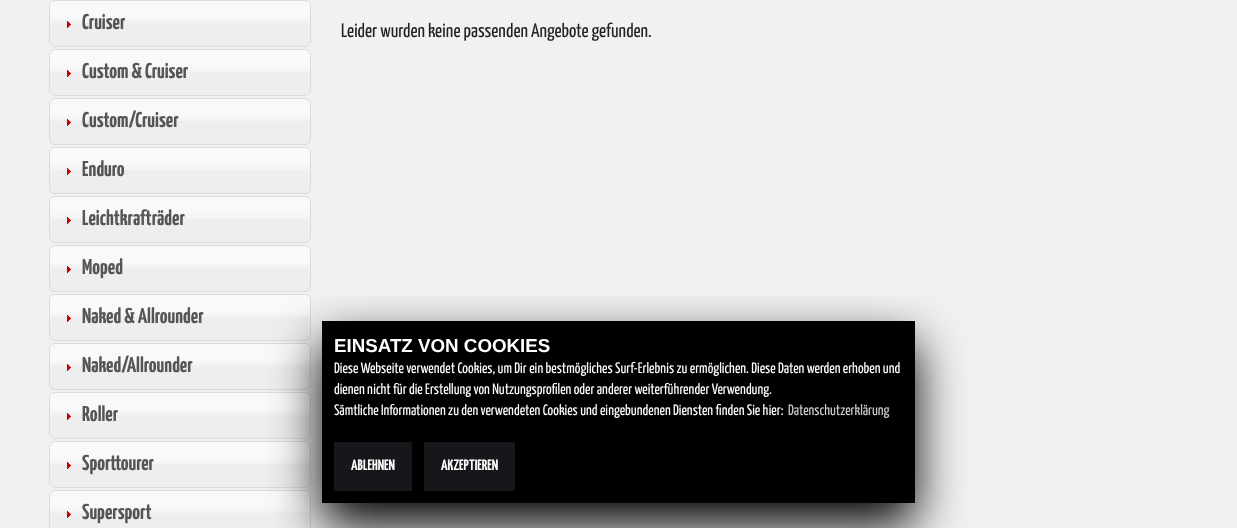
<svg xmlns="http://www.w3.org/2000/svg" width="1237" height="528">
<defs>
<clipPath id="clip1"><rect x="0" y="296" width="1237" height="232"/></clipPath>
</defs>
<rect width="100%" height="100%" fill="#f1f1f1"/>
<rect x="49" width="262" height="47" rx="6" fill="#eee"/>
<image x="49" y="0" width="262" height="23" href="media/1.png"/>
<rect x="49.5" y="0.5" width="261" height="46" rx="5.5" fill="none" stroke="#d8dcdf"/>
<image x="67" y="21" width="4" height="7" href="media/2.png"/>
<text x="82" y="29" style="font-family:Yanone Kaffeesatz;font-size:21.5px;font-weight:bold;fill:#555">Cruiser</text>
<rect x="49" y="49" width="262" height="47" rx="6" fill="#eee"/>
<image x="49" y="49" width="262" height="23" href="media/1.png"/>
<rect x="49.5" y="49.5" width="261" height="46" rx="5.5" fill="none" stroke="#d8dcdf"/>
<image x="67" y="70" width="4" height="7" href="media/2.png"/>
<text x="82" y="78" style="font-family:Yanone Kaffeesatz;font-size:21.5px;font-weight:bold;fill:#555">Custom &amp; Cruiser</text>
<rect x="49" y="98" width="262" height="47" rx="6" fill="#eee"/>
<image x="49" y="98" width="262" height="23" href="media/1.png"/>
<rect x="49.5" y="98.5" width="261" height="46" rx="5.5" fill="none" stroke="#d8dcdf"/>
<image x="67" y="119" width="4" height="7" href="media/2.png"/>
<text x="82" y="127" style="font-family:Yanone Kaffeesatz;font-size:21.5px;font-weight:bold;fill:#555">Custom/Cruiser</text>
<rect x="49" y="147" width="262" height="47" rx="6" fill="#eee"/>
<image x="49" y="147" width="262" height="23" href="media/1.png"/>
<rect x="49.5" y="147.5" width="261" height="46" rx="5.5" fill="none" stroke="#d8dcdf"/>
<image x="67" y="168" width="4" height="7" href="media/2.png"/>
<text x="82" y="176" style="font-family:Yanone Kaffeesatz;font-size:21.5px;font-weight:bold;fill:#555">Enduro</text>
<rect x="49" y="196" width="262" height="47" rx="6" fill="#eee"/>
<image x="49" y="196" width="262" height="23" href="media/1.png"/>
<rect x="49.5" y="196.5" width="261" height="46" rx="5.5" fill="none" stroke="#d8dcdf"/>
<image x="67" y="217" width="4" height="7" href="media/2.png"/>
<text x="82" y="225" style="font-family:Yanone Kaffeesatz;font-size:21.5px;font-weight:bold;fill:#555">Leichtkrafträder</text>
<rect x="49" y="245" width="262" height="47" rx="6" fill="#eee"/>
<image x="49" y="245" width="262" height="23" href="media/1.png"/>
<rect x="49.5" y="245.5" width="261" height="46" rx="5.5" fill="none" stroke="#d8dcdf"/>
<image x="67" y="266" width="4" height="7" href="media/2.png"/>
<text x="82" y="274" style="font-family:Yanone Kaffeesatz;font-size:21.5px;font-weight:bold;fill:#555">Moped</text>
<rect x="49" y="294" width="262" height="47" rx="6" fill="#eee"/>
<image x="49" y="294" width="262" height="23" href="media/1.png"/>
<rect x="49.5" y="294.5" width="261" height="46" rx="5.5" fill="none" stroke="#d8dcdf"/>
<image x="67" y="315" width="4" height="7" href="media/2.png"/>
<text x="82" y="323" style="font-family:Yanone Kaffeesatz;font-size:21.5px;font-weight:bold;fill:#555">Naked &amp; Allrounder</text>
<rect x="49" y="343" width="262" height="47" rx="6" fill="#eee"/>
<image x="49" y="343" width="262" height="23" href="media/1.png"/>
<rect x="49.5" y="343.5" width="261" height="46" rx="5.5" fill="none" stroke="#d8dcdf"/>
<image x="67" y="364" width="4" height="7" href="media/2.png"/>
<text x="82" y="372" style="font-family:Yanone Kaffeesatz;font-size:21.5px;font-weight:bold;fill:#555">Naked/Allrounder</text>
<rect x="49" y="392" width="262" height="47" rx="6" fill="#eee"/>
<image x="49" y="392" width="262" height="23" href="media/1.png"/>
<rect x="49.5" y="392.5" width="261" height="46" rx="5.5" fill="none" stroke="#d8dcdf"/>
<image x="67" y="413" width="4" height="7" href="media/2.png"/>
<text x="82" y="421" style="font-family:Yanone Kaffeesatz;font-size:21.5px;font-weight:bold;fill:#555">Roller</text>
<rect x="49" y="441" width="262" height="47" rx="6" fill="#eee"/>
<image x="49" y="441" width="262" height="23" href="media/1.png"/>
<rect x="49.5" y="441.5" width="261" height="46" rx="5.5" fill="none" stroke="#d8dcdf"/>
<image x="67" y="462" width="4" height="7" href="media/2.png"/>
<text x="82" y="470" style="font-family:Yanone Kaffeesatz;font-size:21.5px;font-weight:bold;fill:#555">Sporttourer</text>
<rect x="49" y="490" width="262" height="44" rx="6" fill="#eee"/>
<image x="49" y="490" width="262" height="23" href="media/1.png"/>
<rect x="49.5" y="490.5" width="261" height="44" rx="5.5" fill="none" stroke="#d8dcdf"/>
<image x="67" y="511" width="4" height="7" href="media/2.png"/>
<text x="82" y="519" style="font-family:Yanone Kaffeesatz;font-size:21.5px;font-weight:bold;fill:#555">Supersport</text>
<text x="341" y="37" style="font-family:Yanone Kaffeesatz;font-size:19.5px;fill:#222">Leider wurden keine passenden Angebote gefunden.</text>
<g clip-path="url(#clip1)">
<rect x="322" y="343" width="593" height="182" fill="#000" filter="blur(25px)"/>
</g>
<rect x="322" y="321" width="593" height="182" fill="#000"/>
<text x="334" y="352" style="font-family:Liberation Sans;font-size:18.75px;font-weight:bold;fill:#fff">EINSATZ VON COOKIES</text>
<text x="334" y="373" style="font-family:Yanone Kaffeesatz;font-size:15px;fill:#fff">Diese Webseite verwendet Cookies, um Dir ein bestmögliches Surf-Erlebnis zu ermöglichen. Diese Daten werden erhoben und</text>
<text x="334" y="394" style="font-family:Yanone Kaffeesatz;font-size:15px;fill:#fff">dienen nicht für die Erstellung von Nutzungsprofilen oder anderer weiterführender Verwendung.</text>
<text x="334" y="415" style="font-family:Yanone Kaffeesatz;font-size:15px;fill:#fff">Sämtliche Informationen zu den verwendeten Cookies und eingebundenen Diensten finden Sie hier:</text>
<text x="788" y="415" style="font-family:Yanone Kaffeesatz;font-size:15px;fill:#ccc">Datenschutzerklärung</text>
<rect x="334" y="442" width="78" height="49" fill="#16171a"/>
<text x="351" y="470" style="font-family:Yanone Kaffeesatz;font-size:15px;font-weight:bold;fill:#fff">ABLEHNEN</text>
<rect x="424" y="442" width="91" height="49" fill="#16171a"/>
<text x="441" y="470" style="font-family:Yanone Kaffeesatz;font-size:15px;font-weight:bold;fill:#fff">AKZEPTIEREN</text>
</svg>
